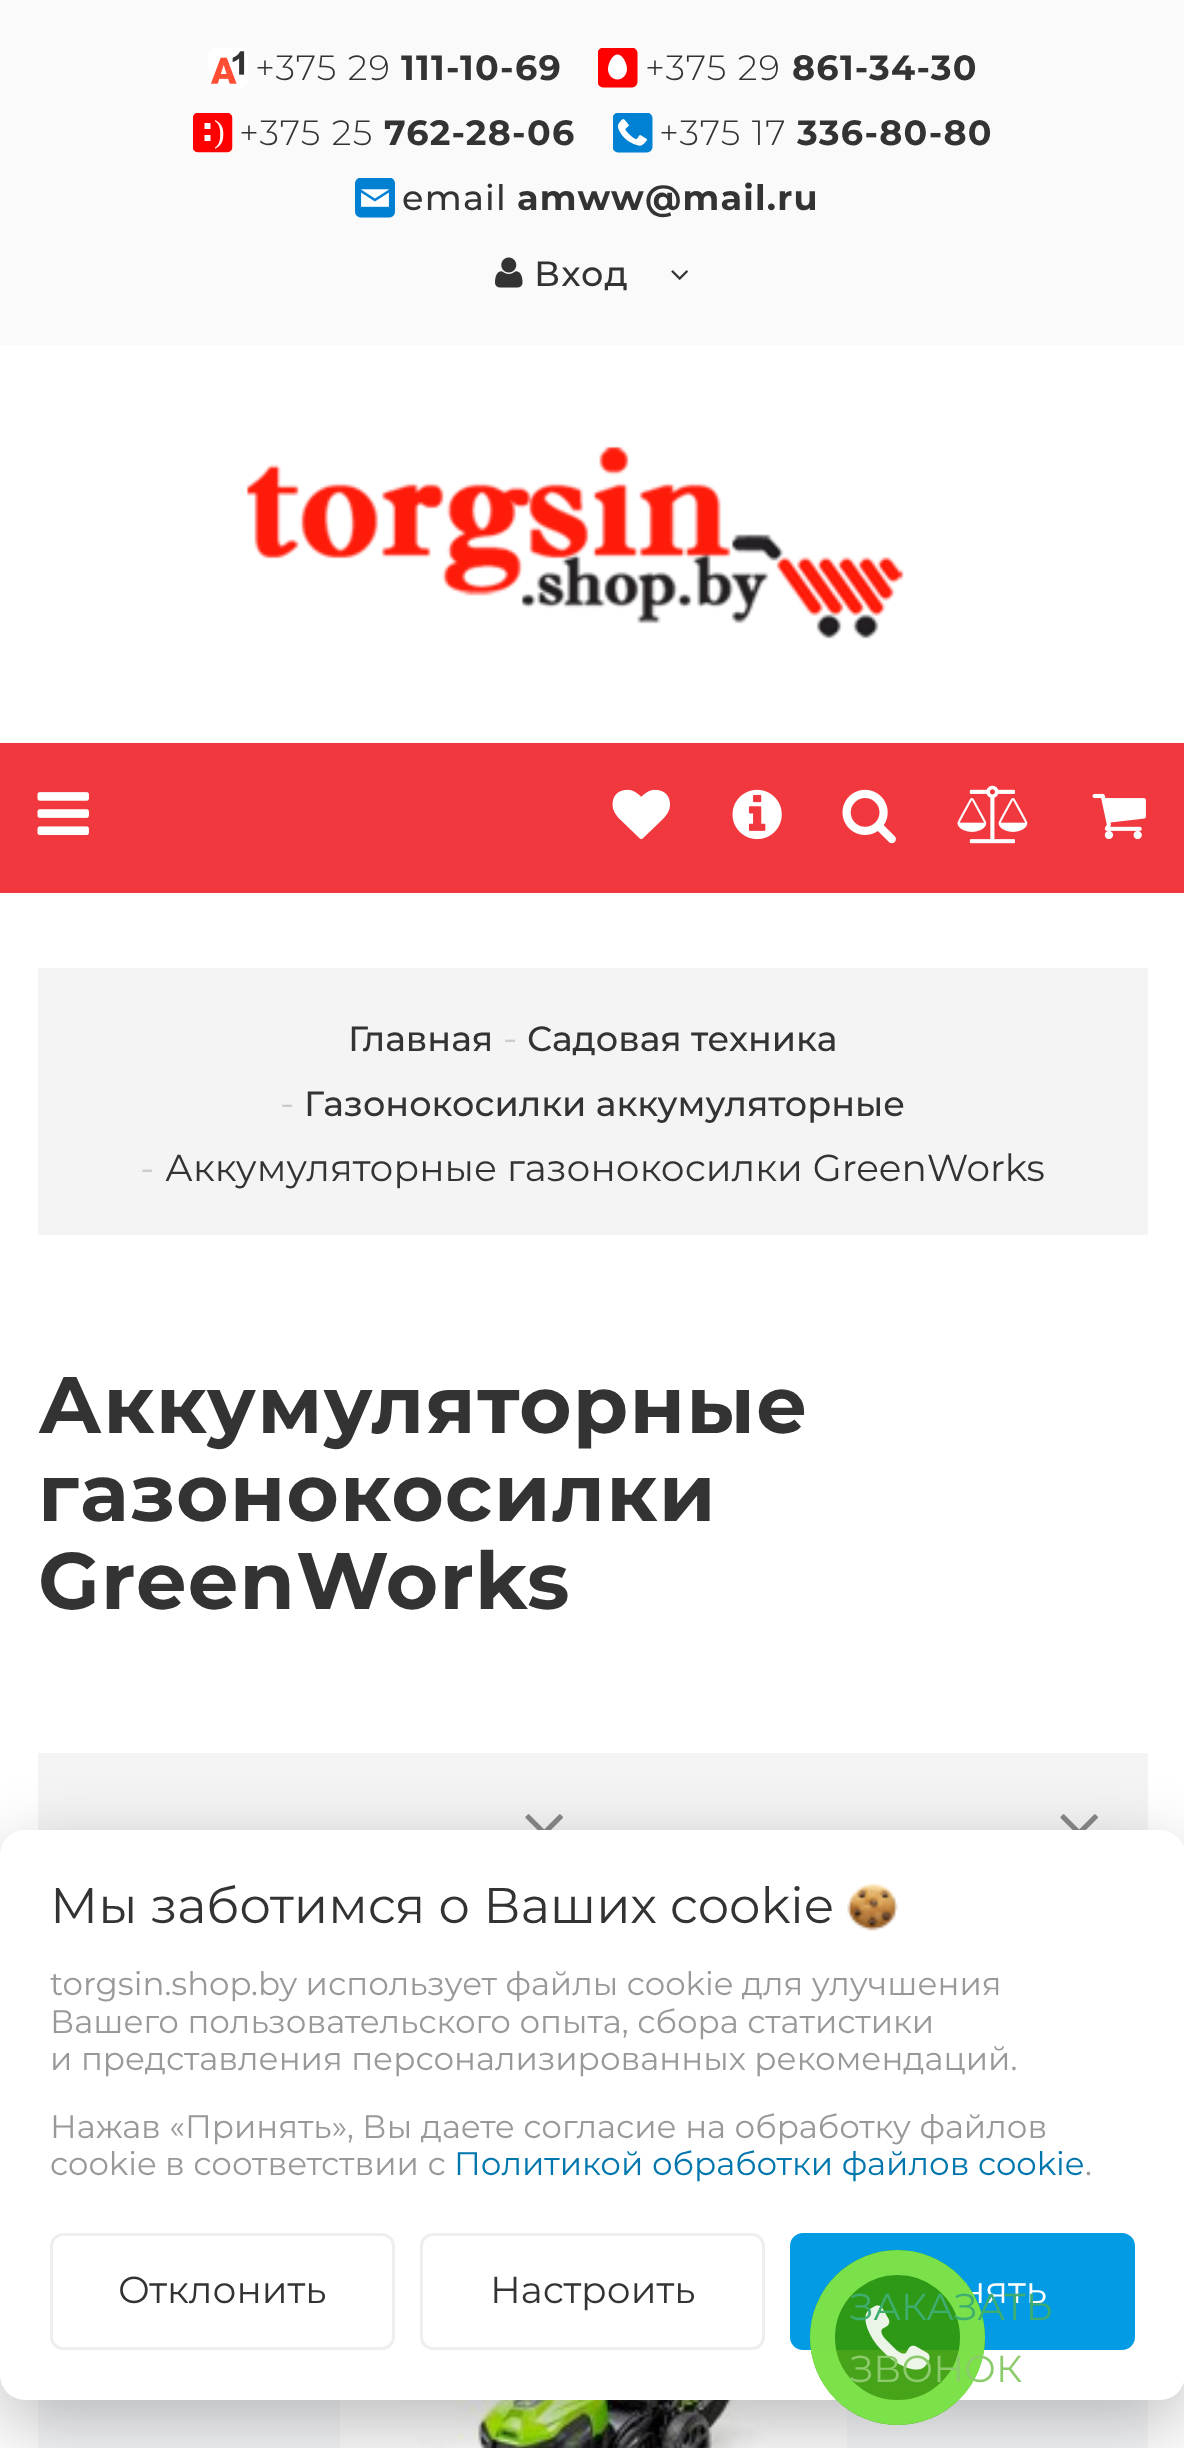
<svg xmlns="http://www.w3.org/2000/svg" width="1184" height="2448">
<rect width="100%" height="100%" fill="#fff"/>
<rect width="1184" height="345" fill="#fafafa"/>
<image x="208" y="48" width="40" height="40" href="media/1.png"/>
<text x="255" y="80" style="font-family:Montserrat;font-size:35px;font-weight:300;letter-spacing:1.25px;fill:#333">+375 29</text>
<text x="401" y="80" style="font-family:Montserrat;font-size:35px;font-weight:bold;letter-spacing:1.25px;fill:#333">111-10-69</text>
<image x="598" y="48" width="40" height="40" href="media/2.png"/>
<text x="645" y="80" style="font-family:Montserrat;font-size:35px;font-weight:300;letter-spacing:1.25px;fill:#333">+375 29</text>
<text x="792" y="80" style="font-family:Montserrat;font-size:35px;font-weight:bold;letter-spacing:1.25px;fill:#333">861-34-30</text>
<image x="193" y="113" width="40" height="40" href="media/3.png"/>
<text x="239" y="145" style="font-family:Montserrat;font-size:35px;font-weight:300;letter-spacing:1.25px;fill:#333">+375 25</text>
<text x="384" y="145" style="font-family:Montserrat;font-size:35px;font-weight:bold;letter-spacing:1.25px;fill:#333">762-28-06</text>
<image x="613" y="113" width="40" height="40" href="media/4.png"/>
<text x="659" y="145" style="font-family:Montserrat;font-size:35px;font-weight:300;letter-spacing:1.25px;fill:#333">+375 17</text>
<text x="797" y="145" style="font-family:Montserrat;font-size:35px;font-weight:bold;letter-spacing:1.25px;fill:#333">336-80-80</text>
<image x="355" y="178" width="40" height="40" href="media/5.png"/>
<text x="402" y="210" style="font-family:Montserrat;font-size:35px;font-weight:500;letter-spacing:1.25px;fill:#333">email</text>
<text x="517" y="210" style="font-family:Montserrat;font-size:35px;font-weight:bold;letter-spacing:1.25px;fill:#333">amww@mail.ru</text>
<image x="495" y="257" width="28" height="31" href="media/6.png"/>
<text x="534" y="286" style="font-family:Montserrat;font-size:35px;font-weight:500;letter-spacing:1.25px;fill:#333">Вход</text>
<image x="671" y="270" width="17" height="10" href="media/7.png"/>
<image x="246" y="446" width="658" height="193" href="media/8.png"/>
<rect y="743" width="1184" height="150" fill="#f1383e"/>
<image x="37" y="792" width="52" height="43" href="media/9.png"/>
<image x="612" y="789" width="58" height="51" href="media/10.png"/>
<image x="732" y="789" width="50" height="51" href="media/11.png"/>
<image x="842" y="789" width="54" height="55" href="media/12.png"/>
<image x="957" y="785" width="71" height="59" href="media/13.png"/>
<image x="1092" y="793" width="54" height="47" href="media/14.png"/>
<rect x="38" y="968" width="1110" height="267" fill="#f4f4f4"/>
<text x="348" y="1051" style="font-family:Montserrat;font-size:35px;font-weight:500;fill:#333">Главная</text>
<text x="503" y="1051" style="font-family:Montserrat;font-size:37.5px;fill:#ccc">-</text>
<text x="527" y="1051" style="font-family:Montserrat;font-size:35px;font-weight:500;fill:#333">Садовая техника</text>
<text x="280" y="1116" style="font-family:Montserrat;font-size:37.5px;fill:#ccc">-</text>
<text x="304" y="1116" style="font-family:Montserrat;font-size:35px;font-weight:500;fill:#333">Газонокосилки аккумуляторные</text>
<text x="140" y="1181" style="font-family:Montserrat;font-size:37.5px;fill:#ccc">-</text>
<text x="165" y="1181" style="font-family:Montserrat;font-size:37.5px;fill:#333">Аккумуляторные газонокосилки GreenWorks</text>
<text x="38" y="1433" style="font-family:Montserrat;font-size:80px;font-weight:bold;letter-spacing:1.25px;fill:#333">Аккумуляторные</text>
<text x="38" y="1521" style="font-family:Montserrat;font-size:80px;font-weight:bold;letter-spacing:1.25px;fill:#333">газонокосилки</text>
<text x="38" y="1609" style="font-family:Montserrat;font-size:80px;font-weight:bold;letter-spacing:1.25px;fill:#333">GreenWorks</text>
<rect x="38" y="1753" width="1110" height="77" fill="#f4f4f4"/>
<image x="525" y="1814" width="38" height="16" href="media/15.png"/>
<image x="1060" y="1814" width="38" height="16" href="media/15.png"/>
<rect x="38" y="2400" width="1110" height="48" fill="#f7f8fa"/>
<image x="340" y="2400" width="507" height="48" href="media/16.png"/>
<rect y="1855" width="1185" height="570" rx="25" fill="#00000042" filter="blur(37.5px)"/>
<rect y="1830" width="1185" height="570" rx="25" fill="#fff"/>
<text x="50" y="1923" style="font-family:Montserrat;font-size:50px;fill:#333">Мы заботимся о Ваших cookie</text>
<image x="847" y="1882" width="51" height="49" href="media/17.png"/>
<text x="50" y="1995" style="font-family:Montserrat;font-size:32.5px;fill:#999">torgsin.shop.by использует файлы cookie для улучшения</text>
<text x="50" y="2033" style="font-family:Montserrat;font-size:32.5px;fill:#999">Вашего пользовательского опыта, сбора статистики</text>
<text x="50" y="2070" style="font-family:Montserrat;font-size:32.5px;fill:#999">и представления персонализированных рекомендаций.</text>
<text x="50" y="2138" style="font-family:Montserrat;font-size:32.5px;fill:#999">Нажав «Принять», Вы даете согласие на обработку файлов</text>
<text x="50" y="2175" style="font-family:Montserrat;font-size:32.5px;fill:#999">cookie в соответствии с</text>
<text x="454" y="2175" style="font-family:Montserrat;font-size:32.5px;fill:#0176ac">Политикой обработки файлов cookie</text>
<text x="1085" y="2175" style="font-family:Montserrat;font-size:32.5px;fill:#999">.</text>
<rect x="51.5" y="2234.5" width="342" height="114" rx="11.5" fill="none" stroke="#eee" stroke-width="3"/>
<text x="118" y="2303" style="font-family:Montserrat;font-size:37.5px;fill:#333">Отклонить</text>
<rect x="421.5" y="2234.5" width="342" height="114" rx="11.5" fill="none" stroke="#eee" stroke-width="3"/>
<text x="490" y="2303" style="font-family:Montserrat;font-size:37.5px;fill:#333">Настроить</text>
<rect x="791.5" y="2234.5" width="342" height="114" rx="11.5" fill="#039ce4" stroke="#039ce4" stroke-width="3"/>
<text x="960" y="2303" style="font-family:Montserrat;font-size:37.5px;fill:#fff">нять</text>
<circle cx="897.5" cy="2337.5" r="87.5" fill="#339900e6"/>
<image x="865" y="2305" width="65" height="65" href="media/18.png"/>
<circle cx="897.5" cy="2337.5" r="75" fill="none" stroke="#83e950e6" stroke-width="25"/>
<text x="850" y="2320" style="font-family:Montserrat;font-size:37.5px;fill:#3fad6f">ЗАКАЗАТЬ</text>
<text x="850" y="2382" style="font-family:Montserrat;font-size:37.5px;fill:#8bcb6b">ЗВОНОК</text>
</svg>
